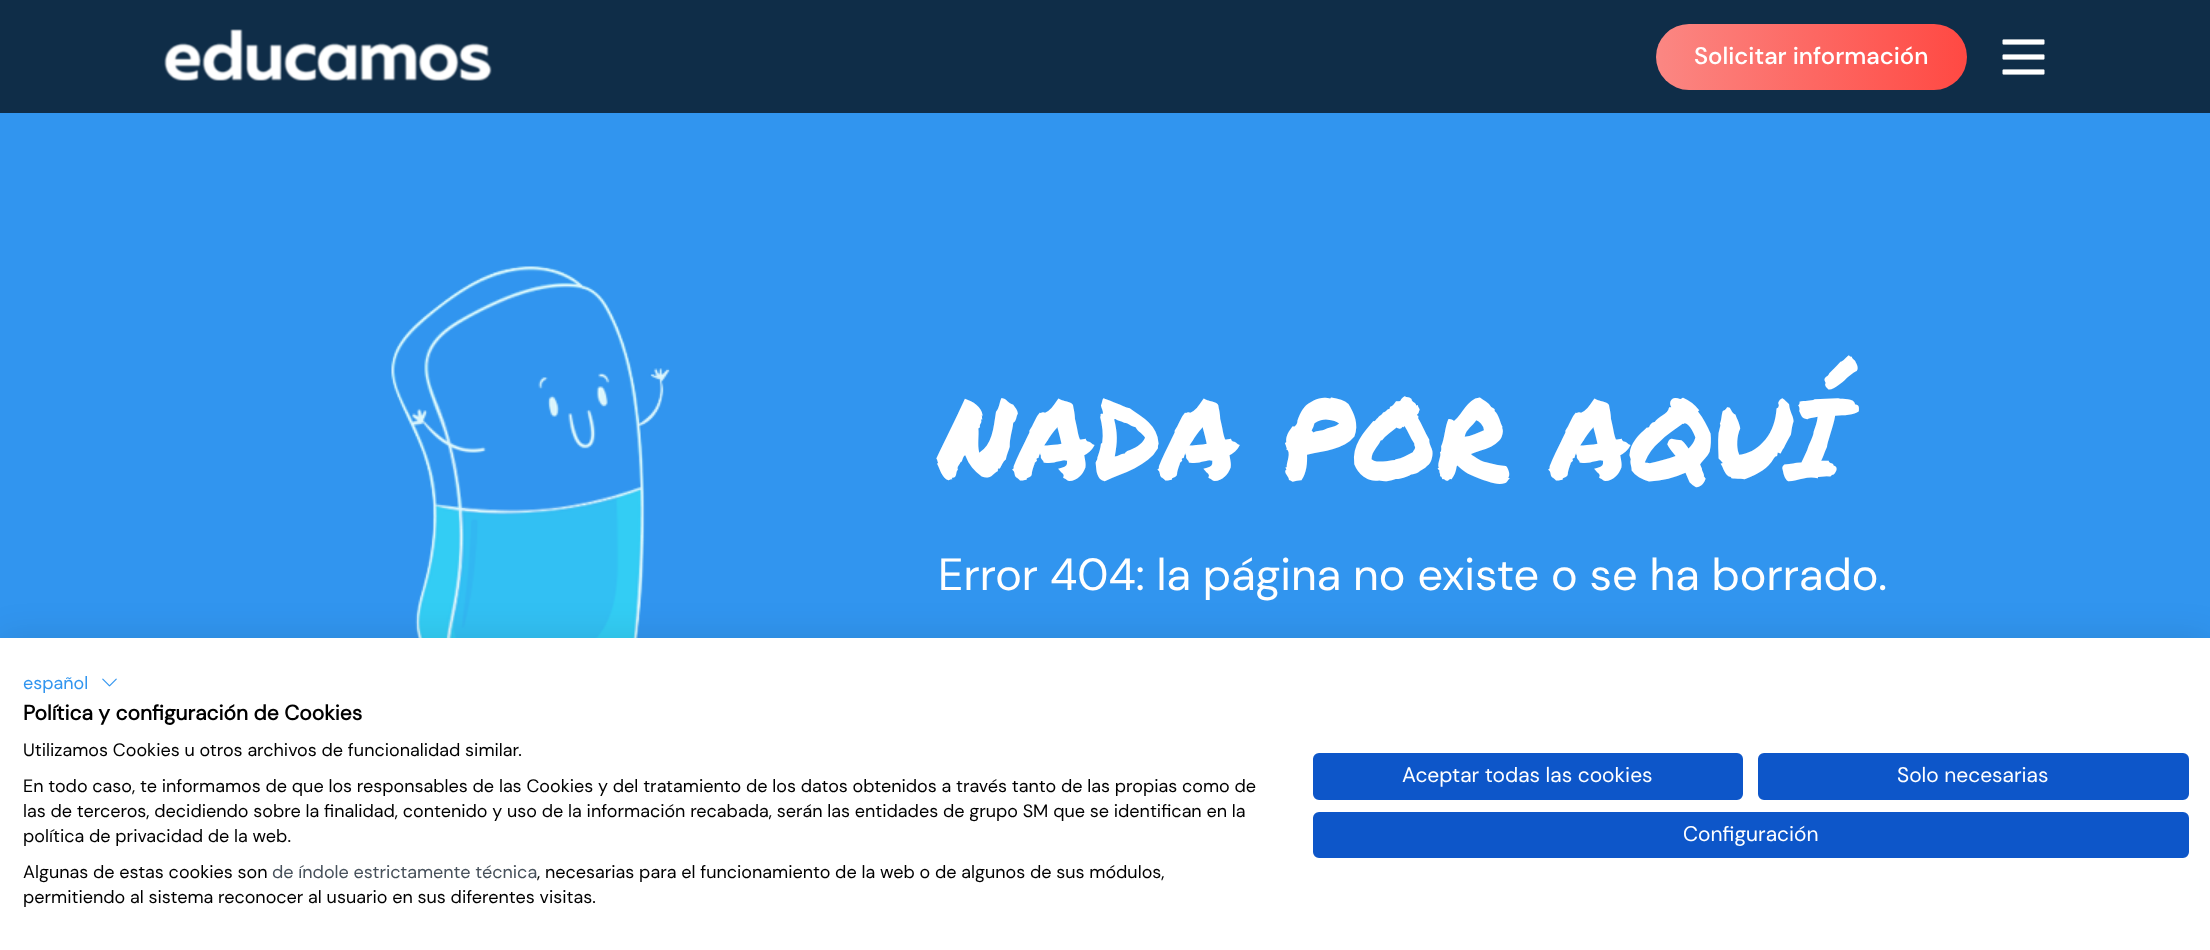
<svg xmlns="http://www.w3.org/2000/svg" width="2210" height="950">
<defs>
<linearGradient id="g1" gradientUnits="userSpaceOnUse" x1="1656" y1="57" x2="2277" y2="57"><stop offset="0" stop-color="#fb8783"/><stop offset="0.5" stop-color="#ff4943"/><stop offset="1" stop-color="#fb8783"/></linearGradient>
</defs>
<rect width="100%" height="100%" fill="#3195ef"/>
<rect width="2210" height="113" fill="#0f2d48"/>
<image x="164" y="29" width="328" height="52" href="media/1.png"/>
<rect x="1656" y="24" width="311" height="66" rx="33" fill="url(#g1)"/>
<text x="1694" y="64" style="font-family:DM Sans;font-size:24px;font-weight:500;fill:#fff">Solicitar información</text>
<image x="2002" y="39" width="43" height="36" href="media/2.png"/>
<image x="391" y="266" width="279" height="372" href="media/3.png"/>
<text x="938" y="480" style="font-family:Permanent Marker;font-size:112.5px;fill:#fff">NADA POR AQUÍ</text>
<text x="938" y="590" style="font-family:DM Sans;font-size:45px;fill:#fff">Error 404: la página no existe o se ha borrado.</text>
<rect y="638" width="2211" height="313" fill="#0000001a" filter="blur(18px)"/>
<rect y="638" width="2210" height="312" fill="#fff"/>
<text x="23" y="689" style="font-family:DM Sans;font-size:18px;fill:#3195ef">español</text>
<image x="102" y="678" width="15" height="9" href="media/4.png"/>
<text x="23" y="720" style="font-family:DM Sans;font-size:21px;font-weight:bold;fill:#000">Política y configuración de Cookies</text>
<text x="23" y="756" style="font-family:DM Sans;font-size:18px;fill:#000">Utilizamos Cookies u otros archivos de funcionalidad similar.</text>
<text x="23" y="792" style="font-family:DM Sans;font-size:18px;fill:#000">En todo caso, te informamos de que los responsables de las Cookies y del tratamiento de los datos obtenidos a través tanto de las propias como de</text>
<text x="23" y="817" style="font-family:DM Sans;font-size:18px;fill:#000">las de terceros, decidiendo sobre la finalidad, contenido y uso de la información recabada, serán las entidades de grupo SM que se identifican en la</text>
<text x="23" y="842" style="font-family:DM Sans;font-size:18px;fill:#000">política de privacidad de la web.</text>
<text x="23" y="878" style="font-family:DM Sans;font-size:18px;fill:#000">Algunas de estas cookies son</text>
<text x="272" y="878" style="font-family:DM Sans;font-size:18px;fill:#47515b">de índole estrictamente técnica</text>
<text x="537" y="878" style="font-family:DM Sans;font-size:18px;fill:#000">, necesarias para el funcionamiento de la web o de algunos de sus módulos,</text>
<text x="23" y="903" style="font-family:DM Sans;font-size:18px;fill:#000">permitiendo al sistema reconocer al usuario en sus diferentes visitas.</text>
<rect x="1314" y="754" width="428" height="45" rx="5" fill="#0d56c9" stroke="#0d56c9" stroke-width="2"/>
<text x="1402" y="782" style="font-family:DM Sans;font-size:21px;fill:#fff">Aceptar todas las cookies</text>
<rect x="1759" y="754" width="429" height="45" rx="5" fill="#0d56c9" stroke="#0d56c9" stroke-width="2"/>
<text x="1897" y="782" style="font-family:DM Sans;font-size:21px;fill:#fff">Solo necesarias</text>
<rect x="1314" y="813" width="874" height="44" rx="5" fill="#0d56c9" stroke="#0d56c9" stroke-width="2"/>
<text x="1683" y="841" style="font-family:DM Sans;font-size:21px;fill:#fff">Configuración</text>
</svg>
